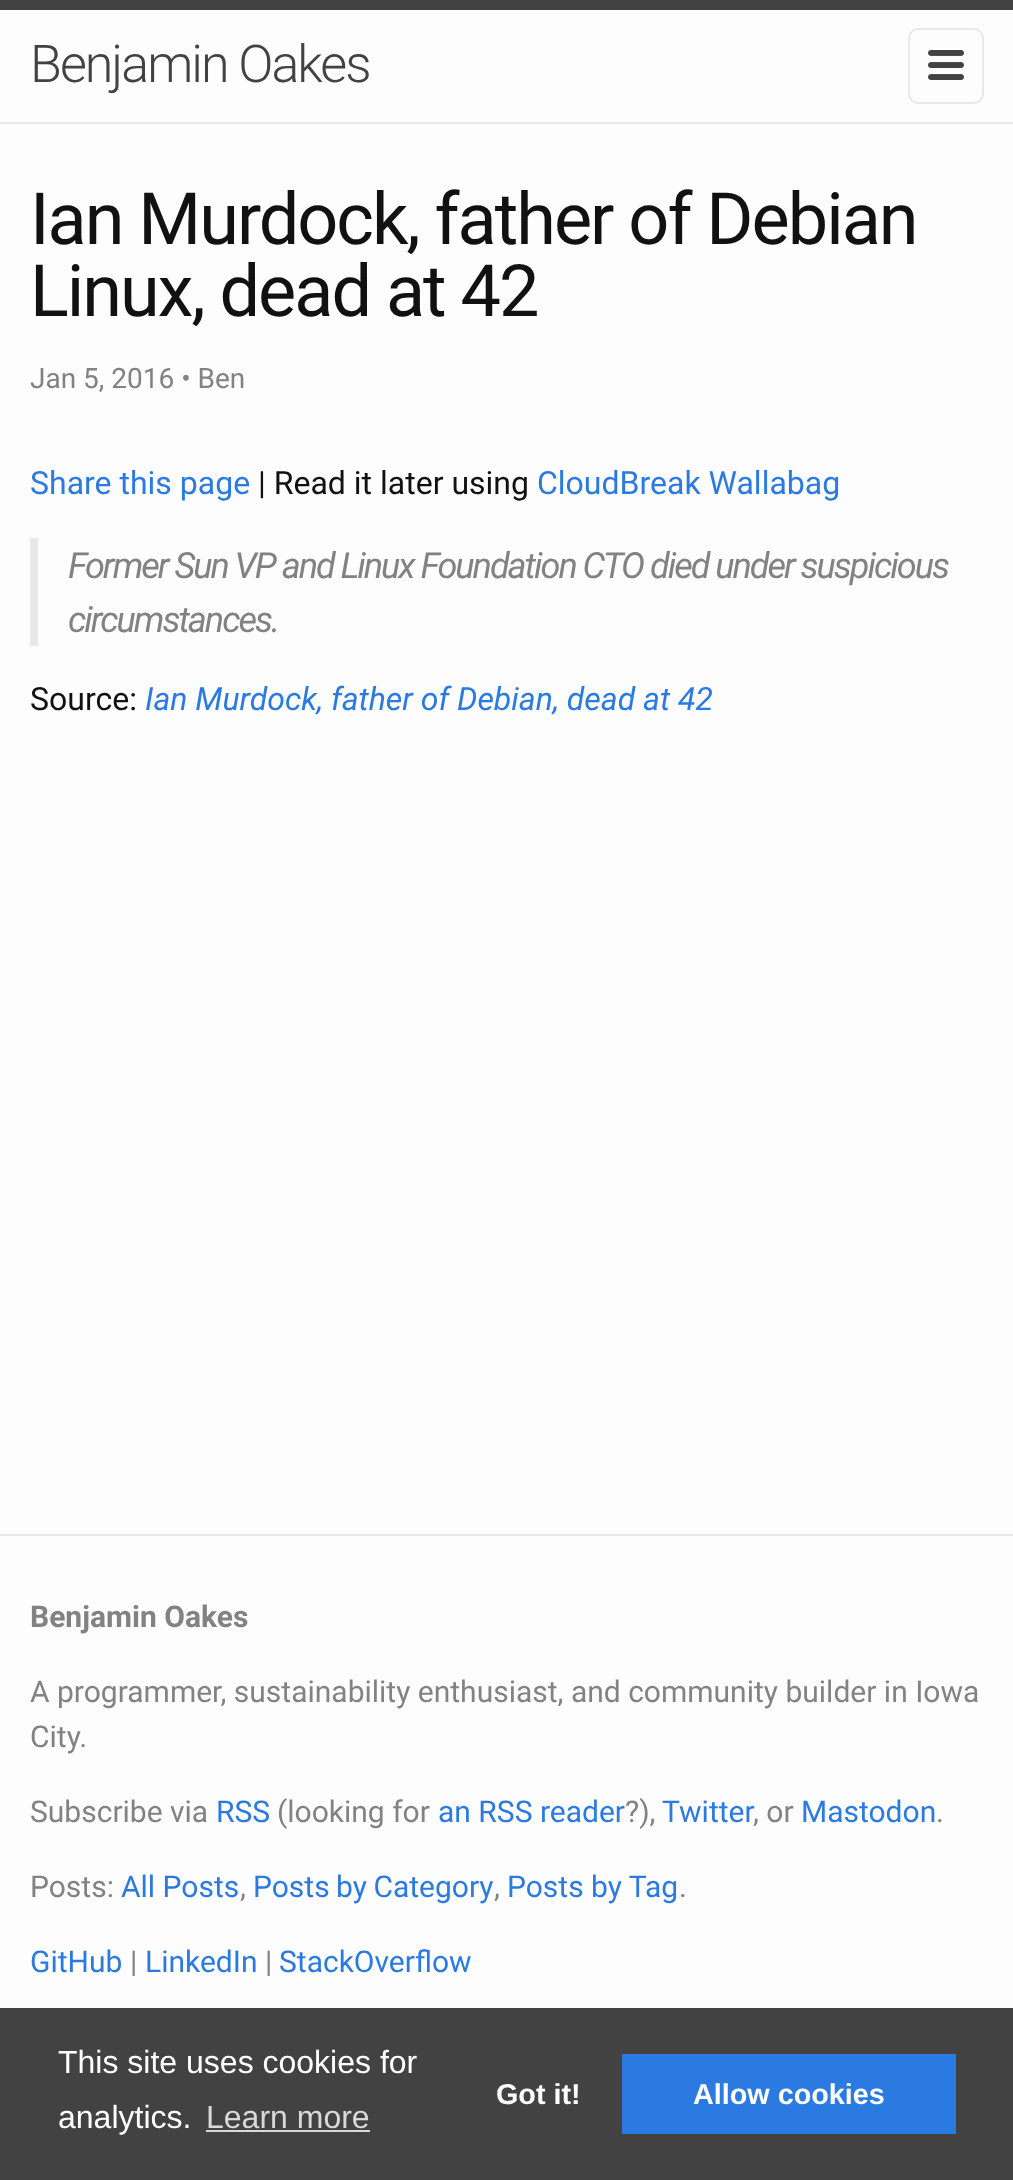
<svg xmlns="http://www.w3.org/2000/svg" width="1013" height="2180">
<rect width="100%" height="100%" fill="#fdfdfd"/>
<rect width="1013" height="10" fill="#424242"/>
<rect y="122" width="1013" height="2" fill="#e8e8e8"/>
<text x="30" y="82" style="font-family:Roboto;font-size:52px;font-weight:300;letter-spacing:-2px;fill:#424242">Benjamin Oakes</text>
<rect x="909" y="29" width="74" height="74" rx="9" fill="none" stroke="#e8e8e8" stroke-width="2"/>
<image x="928" y="50" width="36" height="30" href="media/1.png"/>
<text x="30" y="244" style="font-family:Roboto;font-size:72px;letter-spacing:-2px;fill:#111">Ian Murdock, father of Debian</text>
<text x="30" y="316" style="font-family:Roboto;font-size:72px;letter-spacing:-2px;fill:#111">Linux, dead at 42</text>
<text x="30" y="388" style="font-family:Roboto;font-size:28px;fill:#828282">Jan 5, 2016 • Ben</text>
<text x="30" y="494" style="font-family:Roboto;font-size:32px;fill:#2a7ae2">Share this page</text>
<text x="258" y="494" style="font-family:Roboto;font-size:32px;fill:#111">| Read it later using</text>
<text x="537" y="494" style="font-family:Roboto;font-size:32px;fill:#2a7ae2">CloudBreak Wallabag</text>
<rect x="30" y="538" width="8" height="108" fill="#e8e8e8"/>
<text x="68" y="578" style="font-family:Roboto;font-size:36px;font-style:italic;letter-spacing:-2px;fill:#828282">Former Sun VP and Linux Foundation CTO died under suspicious</text>
<text x="68" y="632" style="font-family:Roboto;font-size:36px;font-style:italic;letter-spacing:-2px;fill:#828282">circumstances.</text>
<text x="30" y="710" style="font-family:Roboto;font-size:32px;fill:#111">Source:</text>
<text x="145" y="710" style="font-family:Roboto;font-size:32px;font-style:italic;fill:#2a7ae2">Ian Murdock, father of Debian, dead at 42</text>
<rect y="1534" width="1013" height="2" fill="#e8e8e8"/>
<text x="30" y="1627" style="font-family:Roboto;font-size:30px;font-weight:bold;fill:#828282">Benjamin Oakes</text>
<text x="30" y="1702" style="font-family:Roboto;font-size:30px;fill:#828282">A programmer, sustainability enthusiast, and community builder in Iowa</text>
<text x="30" y="1747" style="font-family:Roboto;font-size:30px;fill:#828282">City.</text>
<text x="30" y="1822" style="font-family:Roboto;font-size:30px;fill:#828282">Subscribe via</text>
<text x="216" y="1822" style="font-family:Roboto;font-size:30px;fill:#2a7ae2">RSS</text>
<text x="277" y="1822" style="font-family:Roboto;font-size:30px;fill:#828282">(looking for</text>
<text x="438" y="1822" style="font-family:Roboto;font-size:30px;fill:#2a7ae2">an RSS reader</text>
<text x="625" y="1822" style="font-family:Roboto;font-size:30px;fill:#828282">?),</text>
<text x="662" y="1822" style="font-family:Roboto;font-size:30px;fill:#2a7ae2">Twitter</text>
<text x="753" y="1822" style="font-family:Roboto;font-size:30px;fill:#828282">, or</text>
<text x="801" y="1822" style="font-family:Roboto;font-size:30px;fill:#2a7ae2">Mastodon</text>
<text x="936" y="1822" style="font-family:Roboto;font-size:30px;fill:#828282">.</text>
<text x="30" y="1897" style="font-family:Roboto;font-size:30px;fill:#828282">Posts:</text>
<text x="121" y="1897" style="font-family:Roboto;font-size:30px;fill:#2a7ae2">All Posts</text>
<text x="240" y="1897" style="font-family:Roboto;font-size:30px;fill:#828282">,</text>
<text x="253" y="1897" word-spacing="-1" style="font-family:Roboto;font-size:30px;fill:#2a7ae2">Posts by Category</text>
<text x="494" y="1897" style="font-family:Roboto;font-size:30px;fill:#828282">,</text>
<text x="507" y="1897" style="font-family:Roboto;font-size:30px;fill:#2a7ae2">Posts by Tag</text>
<text x="679" y="1897" style="font-family:Roboto;font-size:30px;fill:#828282">.</text>
<text x="30" y="1972" style="font-family:Roboto;font-size:30px;fill:#2a7ae2">GitHub</text>
<text x="130" y="1972" style="font-family:Roboto;font-size:30px;fill:#828282">|</text>
<text x="145" y="1972" style="font-family:Roboto;font-size:30px;fill:#2a7ae2">LinkedIn</text>
<text x="265" y="1972" style="font-family:Roboto;font-size:30px;fill:#828282">|</text>
<text x="279" y="1972" style="font-family:Roboto;font-size:30px;fill:#2a7ae2">StackOverflow</text>
<rect y="2008" width="1013" height="172" fill="#424242"/>
<text x="58" y="2073" style="font-family:Liberation Sans;font-size:32px;fill:#fff">This site uses cookies for</text>
<text x="58" y="2128" style="font-family:Liberation Sans;font-size:32px;fill:#fff">analytics.</text>
<text x="206" y="2128" style="font-family:Liberation Sans;font-size:32px;fill:#d9d9d9">Learn more</text>
<rect x="206" y="2130" width="164" height="2" fill="#d9d9d9"/>
<text x="496" y="2104" style="font-family:Liberation Sans;font-size:28.75px;font-weight:bold;fill:#fff">Got it!</text>
<rect x="622" y="2054" width="334" height="80" fill="#2a7ae2"/>
<text x="693" y="2104" style="font-family:Liberation Sans;font-size:28.75px;font-weight:bold;fill:#fff">Allow cookies</text>
</svg>
